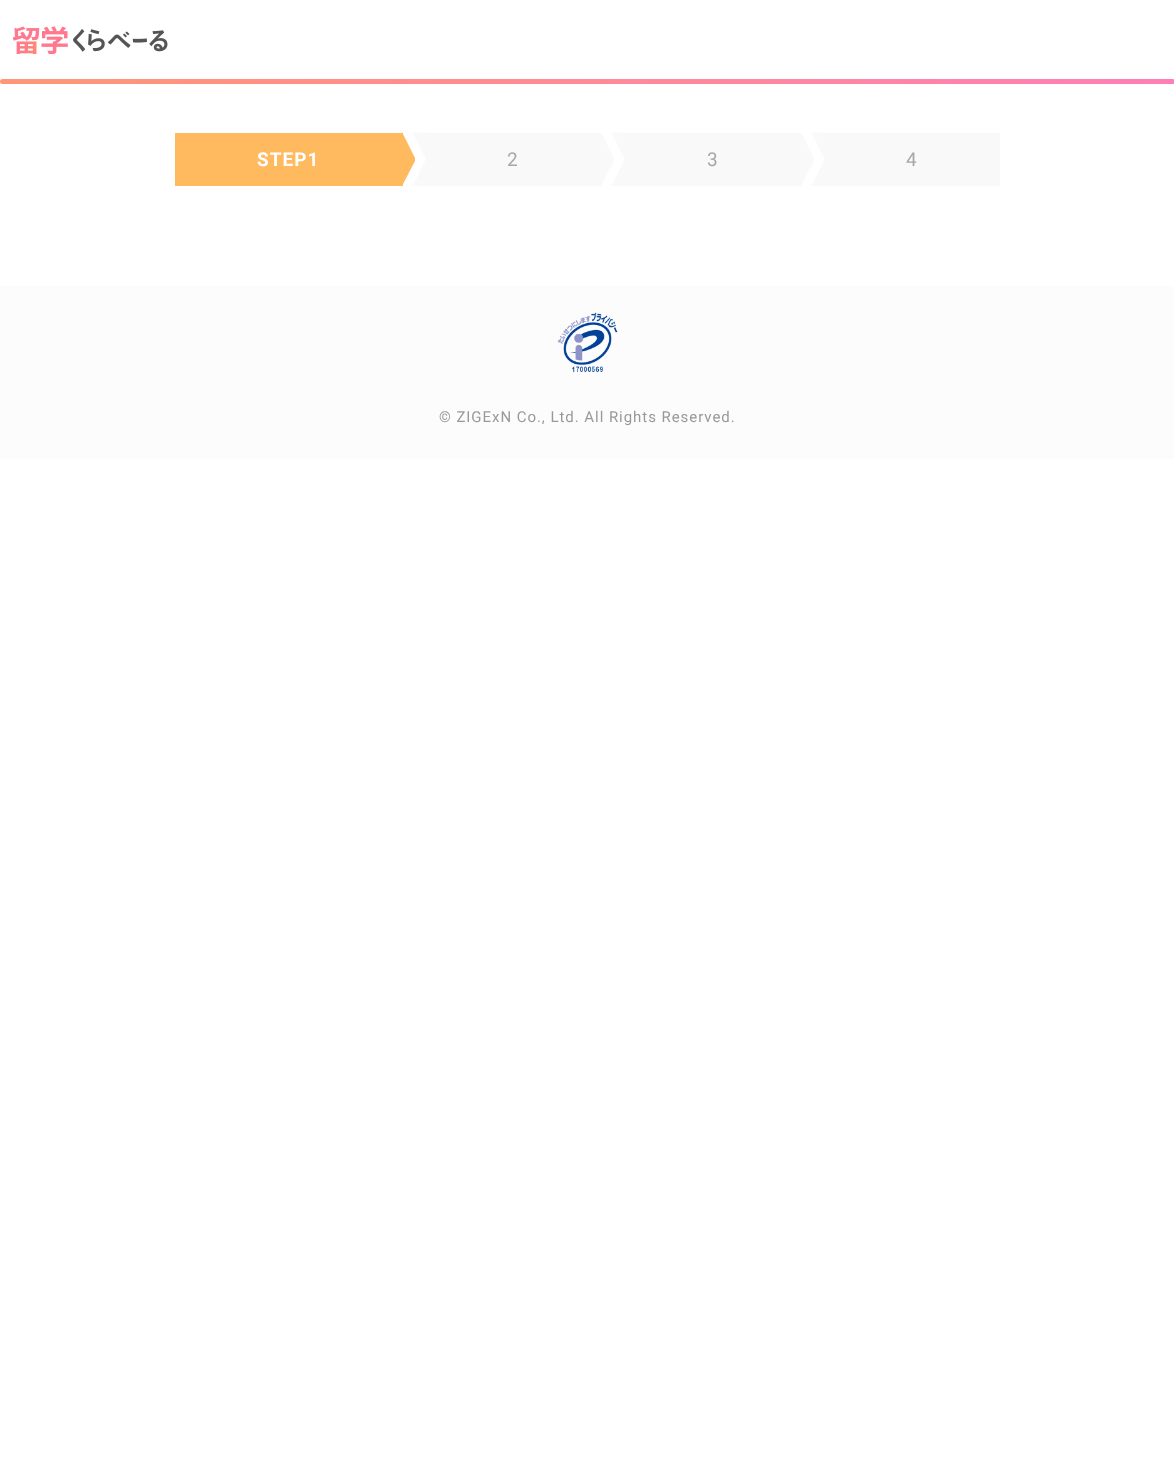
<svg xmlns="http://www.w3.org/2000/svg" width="1174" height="1466">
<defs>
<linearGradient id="g1" gradientUnits="userSpaceOnUse" x1="0" y1="81" x2="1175" y2="81"><stop offset="0" stop-color="#ff9775"/><stop offset="1" stop-color="#ff7eb7"/></linearGradient>
</defs>
<rect width="100%" height="100%" fill="#fff"/>
<image x="13" y="26" width="155" height="28" href="media/1.png"/>
<rect y="79" width="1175" height="5" rx="2.5" fill="url(#g1)"/>
<path d="M402 186v-54l13 26v3z" fill="#ffb95f"/>
<rect x="175" y="133" width="228" height="53" fill="#ffb95f"/>
<text x="257" y="166" style="font-family:Roboto;font-size:19px;font-weight:bold;letter-spacing:1px;fill:#fff">STEP1</text>
<rect x="425" y="133" width="176" height="53" fill="#f9f9f9"/>
<path d="M412.5 132.5h12.5v25zm12.5 53.5h-12.5l12.5-25z" fill="#f9f9f9"/>
<text x="507" y="166" style="font-family:Roboto;font-size:19px;letter-spacing:1px;fill:#a7a7a7">2</text>
<path d="M601 186v-54l13 26v3z" fill="#f9f9f9"/>
<rect x="624" y="133" width="177" height="53" fill="#f9f9f9"/>
<path d="M611 132.5h13v25zm13 53.5h-13l13-25z" fill="#f9f9f9"/>
<text x="707" y="166" style="font-family:Roboto;font-size:19px;letter-spacing:1px;fill:#a7a7a7">3</text>
<path d="M801 186v-54l13 26v3z" fill="#f9f9f9"/>
<rect x="824" y="133" width="176" height="53" fill="#f9f9f9"/>
<path d="M811 132.5h13v25zm13 53.5h-13l13-25z" fill="#f9f9f9"/>
<text x="906" y="166" style="font-family:Roboto;font-size:19px;letter-spacing:1px;fill:#a7a7a7">4</text>
<rect y="286" width="1174" height="173" fill="#fcfcfc"/>
<image x="557" y="312" width="61" height="60" href="media/2.png"/>
<text x="439" y="422" style="font-family:Roboto;font-size:15px;letter-spacing:0.95px;fill:#999">© ZIGExN Co., Ltd. All Rights Reserved.</text>
</svg>
